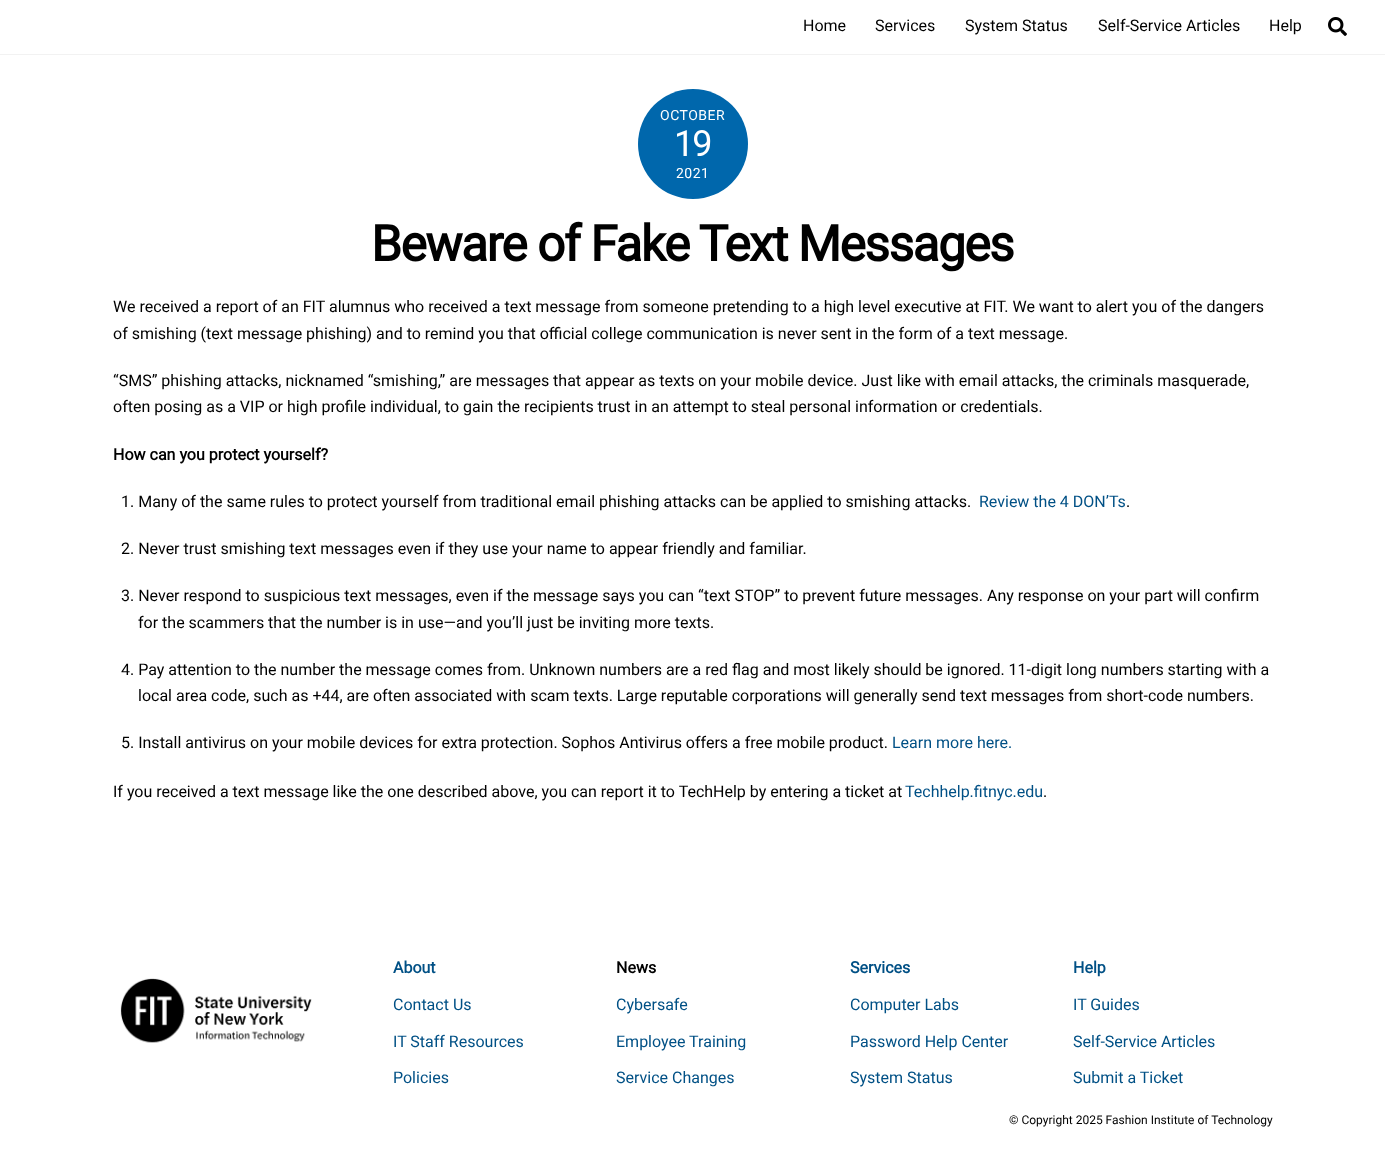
<svg xmlns="http://www.w3.org/2000/svg" width="1385" height="1157">
<rect width="100%" height="100%" fill="#fff"/>
<rect y="54" width="1385" height="1" fill="#f2f2f2"/>
<text x="803" y="31" style="font-family:Roboto;font-size:16px;fill:#000">Home</text>
<text x="875" y="31" style="font-family:Roboto;font-size:16px;fill:#000">Services</text>
<text x="965" y="31" style="font-family:Roboto;font-size:16px;fill:#000">System Status</text>
<text x="1098" y="31" style="font-family:Roboto;font-size:16px;fill:#000">Self-Service Articles</text>
<text x="1269" y="31" style="font-family:Roboto;font-size:16px;fill:#000">Help</text>
<image x="1328" y="17" width="19" height="19" href="media/1.png"/>
<circle cx="693" cy="144" r="55" fill="#0067ac"/>
<text x="660" y="120" style="font-family:Roboto;font-size:14px;letter-spacing:0.5px;fill:#fff">OCTOBER</text>
<text x="674" y="156" style="font-family:Roboto;font-size:36px;letter-spacing:-2px;fill:#fff">19</text>
<text x="676" y="178" style="font-family:Roboto;font-size:14px;letter-spacing:0.5px;fill:#fff">2021</text>
<text x="371" y="261" style="font-family:Roboto;font-size:49.6px;font-weight:bold;letter-spacing:-1.5px;fill:#000">Beware of Fake Text Messages</text>
<text x="113" y="312" style="font-family:Roboto;font-size:16px;fill:#000">We received a report of an FIT alumnus who received a text message from someone pretending to a high level executive at FIT. We want to alert you of the dangers</text>
<text x="113" y="339" style="font-family:Roboto;font-size:16px;fill:#000">of smishing (text message phishing) and to remind you that official college communication is never sent in the form of a text message.</text>
<text x="113" y="386" style="font-family:Roboto;font-size:16px;fill:#000">“SMS” phishing attacks, nicknamed “smishing,” are messages that appear as texts on your mobile device. Just like with email attacks, the criminals masquerade,</text>
<text x="113" y="412" style="font-family:Roboto;font-size:16px;fill:#000">often posing as a VIP or high profile individual, to gain the recipients trust in an attempt to steal personal information or credentials.</text>
<text x="113" y="460" style="font-family:Roboto;font-size:16px;font-weight:bold;fill:#000">How can you protect yourself?</text>
<text x="121" y="507" style="font-family:Roboto;font-size:16px;fill:#000">1. Many of the same rules to protect yourself from traditional email phishing attacks can be applied to smishing attacks.</text>
<text x="979" y="507" style="font-family:Roboto;font-size:16px;fill:#005085">Review the 4 DON’Ts</text>
<text x="1126" y="507" style="font-family:Roboto;font-size:16px;fill:#000">.</text>
<text x="121" y="554" style="font-family:Roboto;font-size:16px;fill:#000">2. Never trust smishing text messages even if they use your name to appear friendly and familiar.</text>
<text x="121" y="601" style="font-family:Roboto;font-size:16px;fill:#000">3. Never respond to suspicious text messages, even if the message says you can “text STOP” to prevent future messages. Any response on your part will confirm</text>
<text x="138" y="628" style="font-family:Roboto;font-size:16px;fill:#000">for the scammers that the number is in use—and you’ll just be inviting more texts.</text>
<text x="121" y="675" style="font-family:Roboto;font-size:16px;fill:#000">4. Pay attention to the number the message comes from. Unknown numbers are a red flag and most likely should be ignored. 11-digit long numbers starting with a</text>
<text x="138" y="701" style="font-family:Roboto;font-size:16px;fill:#000">local area code, such as +44, are often associated with scam texts. Large reputable corporations will generally send text messages from short-code numbers.</text>
<text x="121" y="748" style="font-family:Roboto;font-size:16px;fill:#000">5. Install antivirus on your mobile devices for extra protection. Sophos Antivirus offers a free mobile product.</text>
<text x="892" y="748" style="font-family:Roboto;font-size:16px;fill:#005085">Learn more here.</text>
<text x="113" y="797" style="font-family:Roboto;font-size:16px;fill:#000">If you received a text message like the one described above, you can report it to TechHelp by entering a ticket at</text>
<text x="905" y="797" style="font-family:Roboto;font-size:16px;fill:#005085">Techhelp.fitnyc.edu</text>
<text x="1043" y="797" style="font-family:Roboto;font-size:16px;fill:#000">.</text>
<image x="120" y="978" width="192" height="65" href="media/2.png"/>
<text x="393" y="973" style="font-family:Roboto;font-size:16px;font-weight:bold;fill:#005085">About</text>
<text x="393" y="1010" style="font-family:Roboto;font-size:16px;fill:#005085">Contact Us</text>
<text x="393" y="1047" style="font-family:Roboto;font-size:16px;fill:#005085">IT Staff Resources</text>
<text x="393" y="1083" style="font-family:Roboto;font-size:16px;fill:#005085">Policies</text>
<text x="616" y="973" style="font-family:Roboto;font-size:16px;font-weight:bold;fill:#000">News</text>
<text x="616" y="1010" style="font-family:Roboto;font-size:16px;fill:#005085">Cybersafe</text>
<text x="616" y="1047" style="font-family:Roboto;font-size:16px;fill:#005085">Employee Training</text>
<text x="616" y="1083" style="font-family:Roboto;font-size:16px;fill:#005085">Service Changes</text>
<text x="850" y="973" style="font-family:Roboto;font-size:16px;font-weight:bold;fill:#005085">Services</text>
<text x="850" y="1010" style="font-family:Roboto;font-size:16px;fill:#005085">Computer Labs</text>
<text x="850" y="1047" style="font-family:Roboto;font-size:16px;fill:#005085">Password Help Center</text>
<text x="850" y="1083" style="font-family:Roboto;font-size:16px;fill:#005085">System Status</text>
<text x="1073" y="973" style="font-family:Roboto;font-size:16px;font-weight:bold;fill:#005085">Help</text>
<text x="1073" y="1010" style="font-family:Roboto;font-size:16px;fill:#005085">IT Guides</text>
<text x="1073" y="1047" style="font-family:Roboto;font-size:16px;fill:#005085">Self-Service Articles</text>
<text x="1073" y="1083" style="font-family:Roboto;font-size:16px;fill:#005085">Submit a Ticket</text>
<text x="1009" y="1124" style="font-family:Roboto;font-size:12px;fill:#000">© Copyright 2025 Fashion Institute of Technology</text>
</svg>
